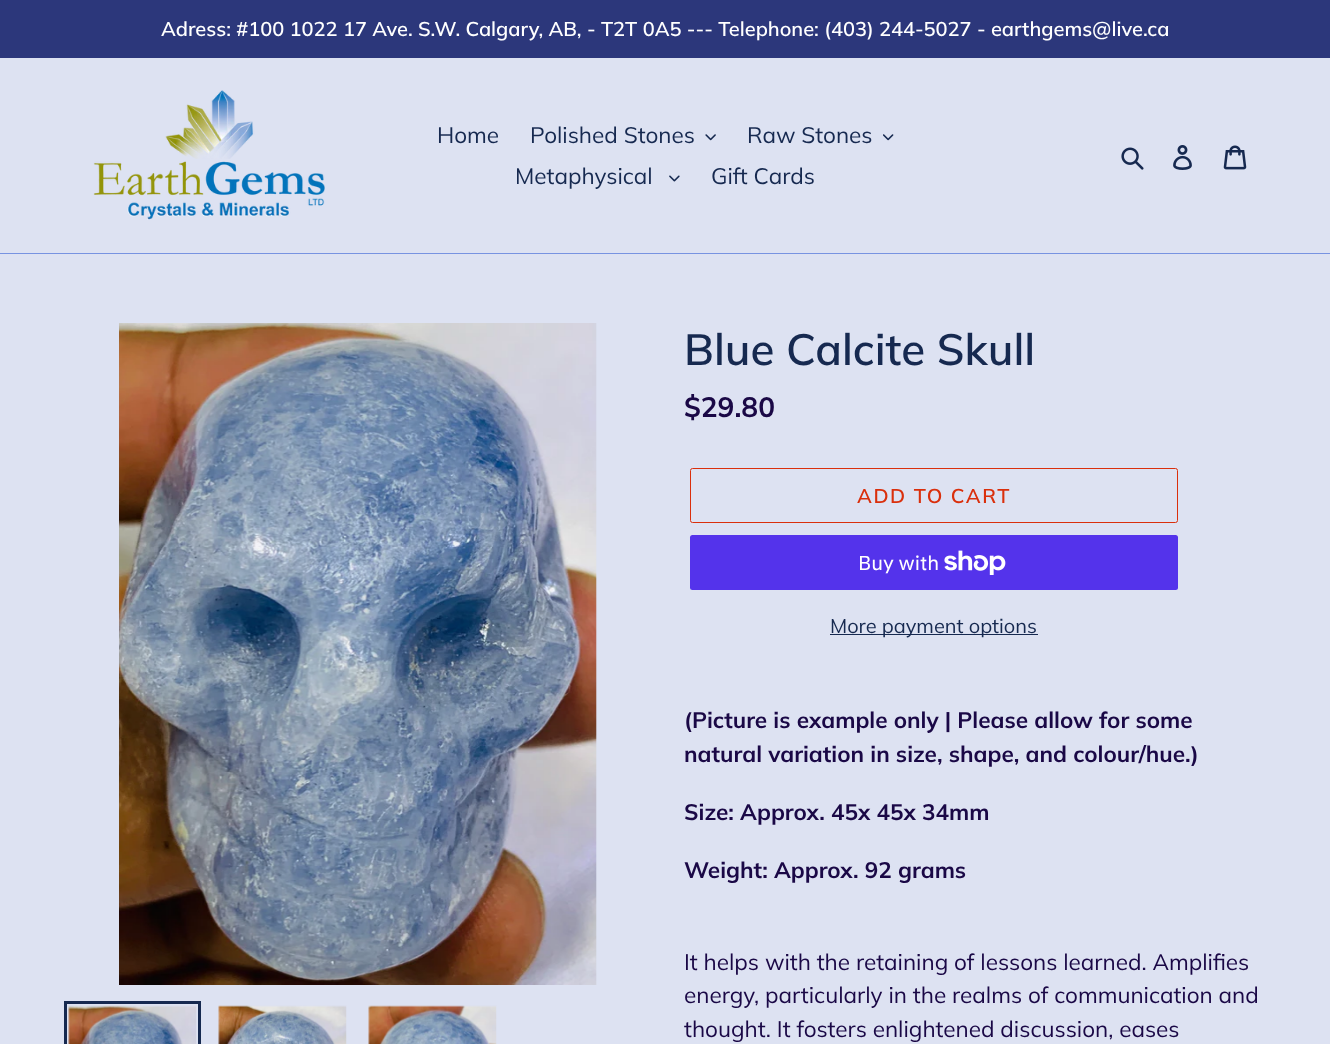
<svg xmlns="http://www.w3.org/2000/svg" width="1330" height="1044">
<rect width="100%" height="100%" fill="#dde2f2"/>
<rect width="1330" height="58" fill="#2c377b"/>
<text x="161" y="36" style="font-family:Muli;font-size:20px;font-weight:600;fill:#fff">Adress: #100 1022 17 Ave. S.W. Calgary, AB, - T2T 0A5 --- Telephone: (403) 244-5027 - earthgems@live.ca</text>
<rect y="253" width="1330" height="1" fill="#7793e1"/>
<image x="93" y="90" width="232" height="130" href="media/1.png"/>
<text x="437" y="143" style="font-family:Muli;font-size:22.5px;fill:#162950">Home</text>
<text x="530" y="143" style="font-family:Muli;font-size:22.5px;fill:#162950">Polished Stones</text>
<image x="705" y="134" width="11" height="7" href="media/2.png"/>
<text x="747" y="143" style="font-family:Muli;font-size:22.5px;fill:#162950">Raw Stones</text>
<image x="883" y="134" width="11" height="7" href="media/3.png"/>
<text x="515" y="184" style="font-family:Muli;font-size:22.5px;fill:#162950">Metaphysical</text>
<image x="669" y="175" width="11" height="7" href="media/4.png"/>
<text x="711" y="184" style="font-family:Muli;font-size:22.5px;fill:#162950">Gift Cards</text>
<image x="1121" y="147" width="23" height="23" href="media/5.png"/>
<image x="1173" y="145" width="19" height="25" href="media/6.png"/>
<image x="1223" y="145" width="24" height="25" href="media/7.png"/>
<image x="119" y="323" width="478" height="662" href="media/8.png"/>
<rect x="65.5" y="1002.5" width="134" height="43" fill="none" stroke="#162950" stroke-width="3"/>
<image x="68" y="1005" width="129" height="39" href="media/9.png"/>
<image x="218" y="1005" width="129" height="39" href="media/10.png"/>
<image x="368" y="1005" width="129" height="39" href="media/11.png"/>
<text x="684" y="365" style="font-family:Muli;font-size:43.75px;font-weight:600;fill:#162950">Blue Calcite Skull</text>
<text x="684" y="417" style="font-family:Muli;font-size:28px;font-weight:bold;fill:#1a0846">$29.80</text>
<rect x="690.5" y="468.5" width="487" height="54" rx="2" fill="none" stroke="#da2f0c"/>
<text x="857" y="503" style="font-family:Muli;font-size:20px;font-weight:600;letter-spacing:1.6px;fill:#da2f0c">ADD TO CART</text>
<rect x="690" y="535" width="488" height="55" rx="2.5" fill="#5433eb"/>
<text x="858" y="570" style="font-family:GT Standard;font-size:20px;fill:#fff">Buy with</text>
<image x="944" y="550" width="62" height="25" href="media/12.png"/>
<rect x="830" y="634" width="208" height="1" fill="#162950"/>
<text x="830" y="633" style="font-family:Muli;font-size:20px;fill:#162950">More payment options</text>
<text x="684" y="728" style="font-family:Muli;font-size:22.5px;font-weight:bold;fill:#1a0846">(Picture is example only | Please allow for some</text>
<text x="684" y="762" style="font-family:Muli;font-size:22.5px;font-weight:bold;fill:#1a0846">natural variation in size, shape, and colour/hue.)</text>
<text x="684" y="820" style="font-family:Muli;font-size:22.5px;font-weight:bold;fill:#1a0846">Size: Approx. 45x 45x 34mm</text>
<text x="684" y="878" style="font-family:Muli;font-size:22.5px;font-weight:bold;fill:#1a0846">Weight: Approx. 92 grams</text>
<text x="684" y="970" style="font-family:Muli;font-size:22.5px;fill:#1a0846">It helps with the retaining of lessons learned. Amplifies</text>
<text x="684" y="1003" style="font-family:Muli;font-size:22.5px;fill:#1a0846">energy, particularly in the realms of communication and</text>
<text x="684" y="1037" style="font-family:Muli;font-size:22.5px;fill:#1a0846">thought. It fosters enlightened discussion, eases</text>
</svg>
